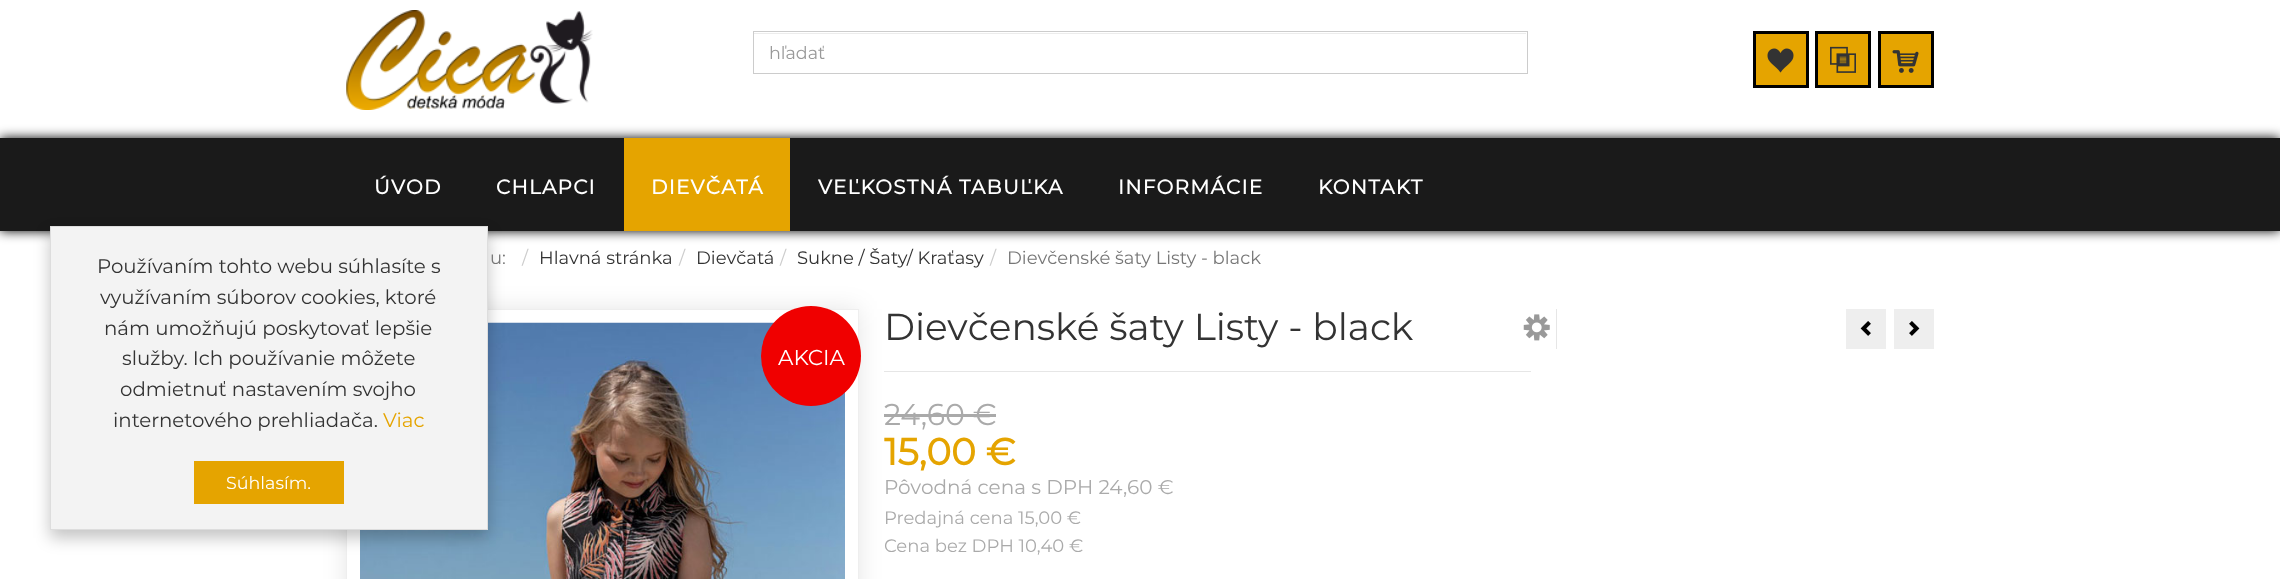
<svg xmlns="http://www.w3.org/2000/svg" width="2280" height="579">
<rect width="100%" height="100%" fill="#fff"/>
<rect y="138" width="2280" height="93" fill="#000" filter="blur(6px)"/>
<rect y="138" width="2280" height="93" fill="#1a1a1a"/>
<rect x="346" y="309" width="513" height="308" fill="#0000001a" filter="blur(12.5px)"/>
<rect x="346.5" y="309.5" width="512" height="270" fill="#fff" stroke="#eee"/>
<image x="360" y="322" width="485" height="257" href="media/5.png"/>
<rect x="50" y="234" width="438" height="304" fill="#0000003b" filter="blur(8px)"/>
<rect x="50.5" y="226.5" width="437" height="303" fill="#f3f3f3" stroke="#ddd"/>
<text x="97" y="273" style="font-family:Montserrat;font-size:19.75px;font-weight:100;fill:#333">Používaním tohto webu súhlasíte s</text>
<text x="100" y="304" style="font-family:Montserrat;font-size:19.75px;font-weight:100;fill:#333">využívaním súborov cookies, ktoré</text>
<text x="104" y="335" style="font-family:Montserrat;font-size:19.75px;font-weight:100;fill:#333">nám umožňujú poskytovať lepšie</text>
<text x="122" y="365" style="font-family:Montserrat;font-size:19.75px;font-weight:100;fill:#333">služby. Ich používanie môžete</text>
<text x="120" y="396" style="font-family:Montserrat;font-size:19.75px;font-weight:100;fill:#333">odmietnuť nastavením svojho</text>
<text x="113" y="427" style="font-family:Montserrat;font-size:19.75px;font-weight:100;fill:#333">internetového prehliadača.</text>
<text x="383" y="427" style="font-family:Montserrat;font-size:19.75px;font-weight:100;fill:#e5a400">Viac</text>
<rect x="194" y="461" width="150" height="43" fill="#e5a400"/>
<text x="226" y="489" style="font-family:Montserrat;font-size:17.5px;font-weight:100;fill:#fff">Súhlasím.</text>
<image x="346" y="10" width="247" height="100" href="media/1.png"/>
<rect x="754" y="33" width="772" height="1" fill="#ececec"/>
<rect x="753.5" y="31.5" width="774" height="42" fill="none" stroke="#ccc"/>
<text x="769" y="59" style="font-family:Montserrat;font-size:17.5px;font-weight:100;fill:#999">hľadať</text>
<rect x="1754.5" y="32.5" width="53" height="54" fill="#e5a400" stroke="#000" stroke-width="3"/>
<image x="1767" y="48" width="27" height="25" href="media/2.png"/>
<rect x="1816.5" y="32.5" width="53" height="54" fill="#e5a400" stroke="#000" stroke-width="3"/>
<image x="1830" y="46" width="26" height="27" href="media/3.png"/>
<rect x="1879.5" y="32.5" width="53" height="54" fill="#e5a400" stroke="#000" stroke-width="3"/>
<image x="1892" y="50" width="27" height="23" href="media/4.png"/>
<text x="374" y="194" style="font-family:Montserrat;font-size:20px;font-weight:bold;letter-spacing:1.25px;fill:#fff">ÚVOD</text>
<text x="496" y="194" style="font-family:Montserrat;font-size:20px;font-weight:bold;letter-spacing:1.25px;fill:#fff">CHLAPCI</text>
<rect x="624" y="138" width="166" height="93" fill="#e5a400"/>
<text x="651" y="194" style="font-family:Montserrat;font-size:20px;font-weight:bold;letter-spacing:1.25px;fill:#fff">DIEVČATÁ</text>
<text x="818" y="194" style="font-family:Montserrat;font-size:20px;font-weight:bold;letter-spacing:1.25px;fill:#fff">VEĽKOSTNÁ TABUĽKA</text>
<text x="1118" y="194" style="font-family:Montserrat;font-size:20px;font-weight:bold;letter-spacing:1.25px;fill:#fff">INFORMÁCIE</text>
<text x="1318" y="194" style="font-family:Montserrat;font-size:20px;font-weight:bold;letter-spacing:1.25px;fill:#fff">KONTAKT</text>
<text x="490" y="264" style="font-family:Montserrat;font-size:18px;font-weight:100;fill:#777">u:</text>
<text x="522" y="264" style="font-family:Montserrat;font-size:18px;font-weight:100;fill:#ccc">/</text>
<text x="539" y="264" style="font-family:Montserrat;font-size:18px;font-weight:100;fill:#333">Hlavná stránka</text>
<text x="679" y="264" style="font-family:Montserrat;font-size:18px;font-weight:100;fill:#ccc">/</text>
<text x="696" y="264" style="font-family:Montserrat;font-size:18px;font-weight:100;fill:#333">Dievčatá</text>
<text x="780" y="264" style="font-family:Montserrat;font-size:18px;font-weight:100;fill:#ccc">/</text>
<text x="797" y="264" style="font-family:Montserrat;font-size:18px;font-weight:100;fill:#333">Sukne / Šaty/ Kraťasy</text>
<text x="990" y="264" style="font-family:Montserrat;font-size:18px;font-weight:100;fill:#ccc">/</text>
<text x="1007" y="264" style="font-family:Montserrat;font-size:18px;font-weight:100;fill:#777">Dievčenské šaty Listy - black</text>
<circle cx="811" cy="356" r="50" fill="#f00000"/>
<text x="778" y="365" style="font-family:Montserrat;font-size:21.5px;font-weight:100;fill:#fff">AKCIA</text>
<text x="884" y="340" style="font-family:Montserrat;font-size:37.5px;font-weight:100;fill:#333">Dievčenské šaty Listy - black</text>
<image x="1523" y="314" width="27" height="27" href="media/6.png"/>
<rect x="884" y="371" width="647" height="1" fill="#e6e6e6"/>
<text x="884" y="425" style="font-family:Montserrat;font-size:30px;font-weight:100;fill:#aaa">24,60 €</text>
<rect x="884" y="414" width="112" height="3" fill="#aaa"/>
<text x="884" y="465" style="font-family:Montserrat;font-size:37.5px;font-weight:bold;fill:#e5a400">15,00 €</text>
<text x="884" y="494" style="font-family:Montserrat;font-size:20px;font-weight:100;fill:#aaa">Pôvodná cena s DPH 24,60 €</text>
<text x="884" y="524" style="font-family:Montserrat;font-size:18px;font-weight:100;fill:#aaa">Predajná cena 15,00 €</text>
<text x="884" y="552" style="font-family:Montserrat;font-size:18px;font-weight:100;fill:#aaa">Cena bez DPH 10,40 €</text>
<rect x="1556" y="309" width="1" height="40" fill="#e6e6e6"/>
<rect x="1846" y="309" width="40" height="40" fill="#eee"/>
<image x="1860" y="321" width="11" height="15" href="media/7.png"/>
<rect x="1894" y="309" width="40" height="40" fill="#eee"/>
<image x="1909" y="321" width="11" height="15" href="media/8.png"/>
</svg>
